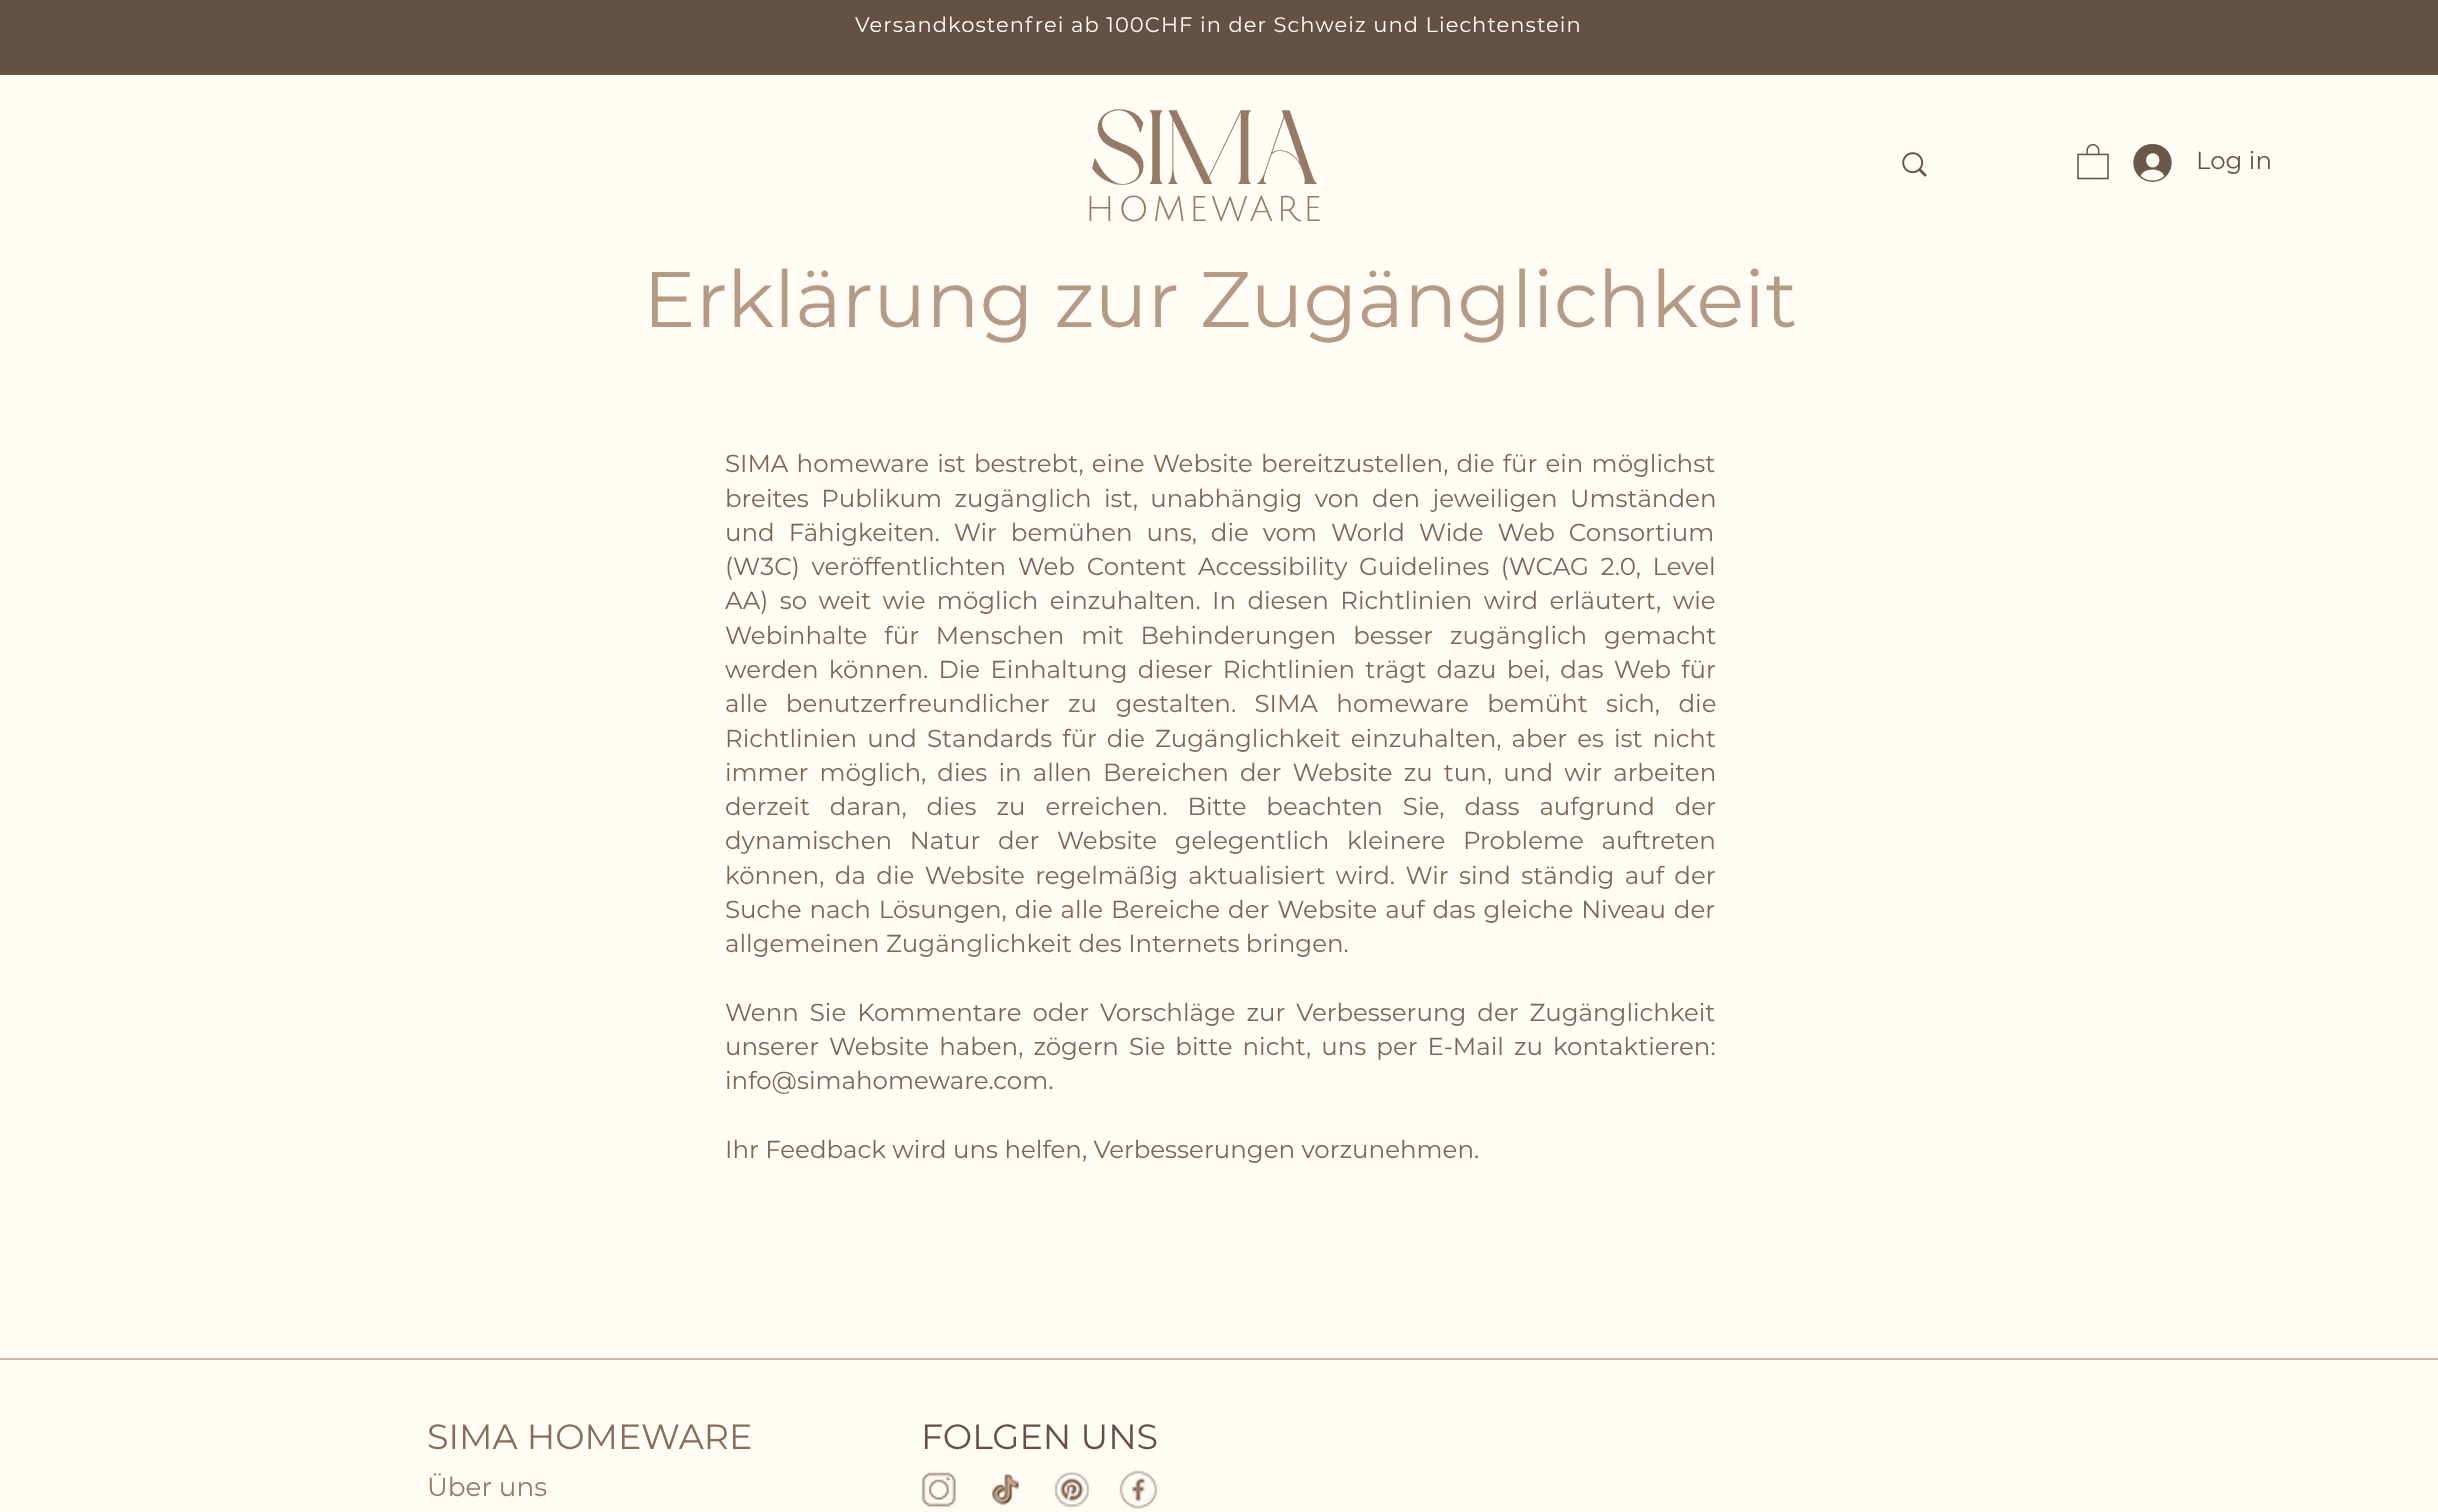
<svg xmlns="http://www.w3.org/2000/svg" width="2438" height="1512">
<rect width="100%" height="100%" fill="#fffbf5"/>
<rect width="2438" height="75" fill="#645144"/>
<text x="855" y="32" style="font-family:Montserrat;font-size:21px;letter-spacing:1.05px;fill:#fffbf5">Versandkostenfrei ab 100CHF in der Schweiz und Liechtenstein</text>
<text x="1089" y="184" style="font-family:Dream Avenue;font-size:105px;fill:#967a65">SIMA</text>
<image x="1902" y="152" width="25" height="25" href="media/1.png"/>
<image x="2077" y="144" width="32" height="36" href="media/2.png"/>
<image x="2133" y="144" width="39" height="38" href="media/3.png"/>
<text x="2196" y="169" style="font-family:Montserrat;font-size:24.5px;fill:#645144">Log in</text>
<text x="1085" y="221" style="font-family:Julius Sans One;font-size:35px;letter-spacing:3.5px;fill:#967a65">HOMEWARE</text>
<text x="643" y="327" style="font-family:Montserrat;font-size:78.75px;fill:#b59a86">Erklärung zur Zugänglichkeit</text>
<text x="725" y="472" word-spacing="1.75" style="font-family:Montserrat;font-size:24.5px;fill:#7d6655">SIMA homeware ist bestrebt, eine Website bereitzustellen, die für ein möglichst</text>
<text x="725" y="507" word-spacing="6" style="font-family:Montserrat;font-size:24.5px;fill:#7d6655">breites Publikum zugänglich ist, unabhängig von den jeweiligen Umständen</text>
<text x="725" y="541" word-spacing="7.5" style="font-family:Montserrat;font-size:24.5px;fill:#7d6655">und Fähigkeiten. Wir bemühen uns, die vom World Wide Web Consortium</text>
<text x="725" y="575" word-spacing="5.25" style="font-family:Montserrat;font-size:24.5px;fill:#7d6655">(W3C) veröffentlichten Web Content Accessibility Guidelines (WCAG 2.0, Level</text>
<text x="725" y="609" word-spacing="5" style="font-family:Montserrat;font-size:24.5px;fill:#7d6655">AA) so weit wie möglich einzuhalten. In diesen Richtlinien wird erläutert, wie</text>
<text x="725" y="644" word-spacing="10.5" style="font-family:Montserrat;font-size:24.5px;fill:#7d6655">Webinhalte für Menschen mit Behinderungen besser zugänglich gemacht</text>
<text x="725" y="678" word-spacing="3.9" style="font-family:Montserrat;font-size:24.5px;fill:#7d6655">werden können. Die Einhaltung dieser Richtlinien trägt dazu bei, das Web für</text>
<text x="725" y="712" word-spacing="12" style="font-family:Montserrat;font-size:24.5px;fill:#7d6655">alle benutzerfreundlicher zu gestalten. SIMA homeware bemüht sich, die</text>
<text x="725" y="747" word-spacing="3.6" style="font-family:Montserrat;font-size:24.5px;fill:#7d6655">Richtlinien und Standards für die Zugänglichkeit einzuhalten, aber es ist nicht</text>
<text x="725" y="781" word-spacing="4.75" style="font-family:Montserrat;font-size:24.5px;fill:#7d6655">immer möglich, dies in allen Bereichen der Website zu tun, und wir arbeiten</text>
<text x="725" y="815" word-spacing="13.5" style="font-family:Montserrat;font-size:24.5px;fill:#7d6655">derzeit daran, dies zu erreichen. Bitte beachten Sie, dass aufgrund der</text>
<text x="725" y="849" word-spacing="11.25" style="font-family:Montserrat;font-size:24.5px;fill:#7d6655">dynamischen Natur der Website gelegentlich kleinere Probleme auftreten</text>
<text x="725" y="884" word-spacing="4" style="font-family:Montserrat;font-size:24.5px;fill:#7d6655">können, da die Website regelmäßig aktualisiert wird. Wir sind ständig auf der</text>
<text x="725" y="918" word-spacing="1.5" style="font-family:Montserrat;font-size:24.5px;fill:#7d6655">Suche nach Lösungen, die alle Bereiche der Website auf das gleiche Niveau der</text>
<text x="725" y="952" style="font-family:Montserrat;font-size:24.5px;fill:#7d6655">allgemeinen Zugänglichkeit des Internets bringen.</text>
<text x="725" y="1021" word-spacing="4.5" style="font-family:Montserrat;font-size:24.5px;fill:#7d6655">Wenn Sie Kommentare oder Vorschläge zur Verbesserung der Zugänglichkeit</text>
<text x="725" y="1055" word-spacing="3.6" style="font-family:Montserrat;font-size:24.5px;fill:#7d6655">unserer Website haben, zögern Sie bitte nicht, uns per E-Mail zu kontaktieren:</text>
<text x="725" y="1089" style="font-family:Montserrat;font-size:24.5px;fill:#7d6655">info@simahomeware.com.</text>
<text x="725" y="1158" style="font-family:Montserrat;font-size:24.5px;fill:#7d6655">Ihr Feedback wird uns helfen, Verbesserungen vorzunehmen.</text>
<rect y="1358" width="2438" height="2" fill="#cab6a6"/>
<text x="427" y="1449" style="font-family:Montserrat;font-size:35px;fill:#876d5a">SIMA HOMEWARE</text>
<text x="921" y="1449" style="font-family:Montserrat;font-size:35px;fill:#645144">FOLGEN UNS</text>
<text x="427" y="1496" style="font-family:Montserrat;font-size:26.25px;fill:#967a65">Über uns</text>
<image x="921" y="1472" width="36" height="36" href="media/4.png"/>
<image x="991" y="1474" width="28" height="32" href="media/5.png"/>
<image x="1053" y="1471" width="38" height="37" href="media/6.png"/>
<image x="1119" y="1470" width="39" height="39" href="media/7.png"/>
</svg>
